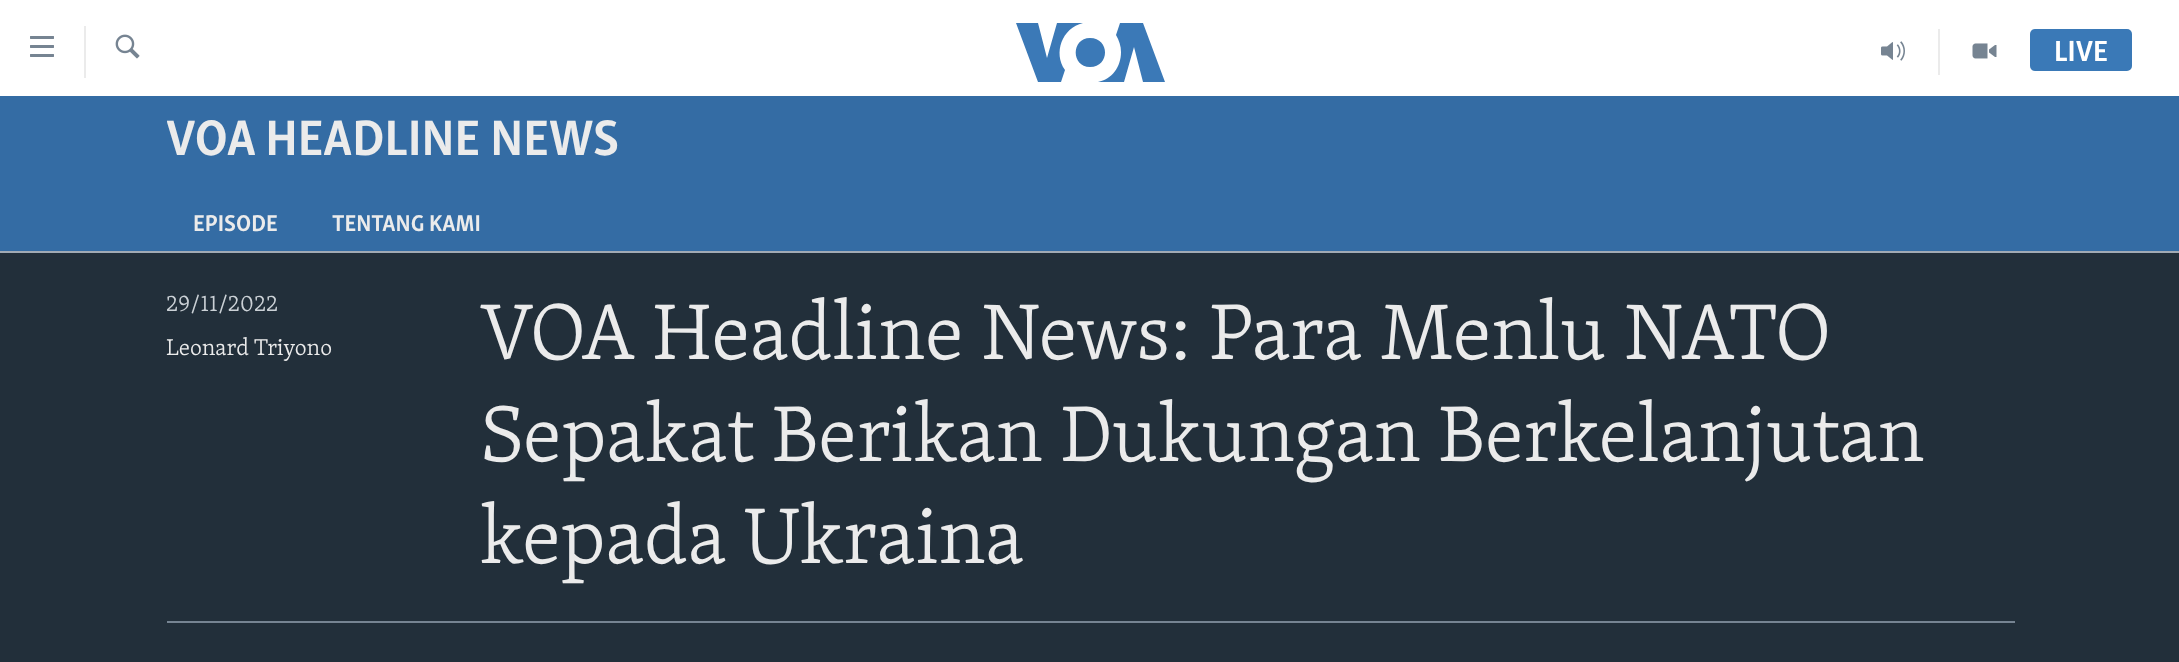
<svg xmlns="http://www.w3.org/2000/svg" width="2179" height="662">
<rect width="100%" height="100%" fill="#fff"/>
<image x="30" y="36" width="24" height="21" href="media/1.png"/>
<rect x="84" y="26" width="2" height="52" fill="#ebebeb"/>
<image x="115" y="34" width="25" height="25" href="media/2.png"/>
<path d="M1065 70l-4 12h-23l-22-59h22l9 35l10-35h26c-21 5-30 30-18 47zm25-32c-19 0-19 29 0 29c20 0 20-29 0-29zm31 14c0 15-9 27-23 30h26l10-35l9 35h22l-22-59h-23l-4 12c3 5 5 11 5 17z" fill="#3b79b7"/>
<rect x="1938" y="29" width="2" height="46" fill="#ebebeb"/>
<image x="1881" y="41" width="24" height="20" href="media/3.png"/>
<image x="1972" y="43" width="25" height="16" href="media/4.png"/>
<rect x="2030" y="29" width="102" height="42" rx="5" fill="#3a79b7"/>
<text x="2054" y="61" style="font-family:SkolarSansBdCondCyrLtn;font-size:30px;font-weight:bold;fill:#fff">LIVE</text>
<rect y="96" width="2179" height="155" fill="#346ca4"/>
<text x="166" y="155" style="font-family:SkolarSansBdCondCyrLtn;font-size:51.25px;font-weight:bold;fill:#ebebeb">VOA HEADLINE NEWS</text>
<text x="193" y="231" style="font-family:SkolarSansBdCondCyrLtn;font-size:23.5px;font-weight:bold;fill:#ebebeb">EPISODE</text>
<text x="332" y="231" style="font-family:SkolarSansBdCondCyrLtn;font-size:23.5px;font-weight:bold;fill:#ebebeb">TENTANG KAMI</text>
<rect y="253" width="2179" height="409" fill="#222f3a"/>
<rect y="251" width="2179" height="2" fill="#a1aab4"/>
<text x="166" y="311" style="font-family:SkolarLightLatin;font-size:23.5px;font-weight:300;fill:#cbd1d6">29/11/2022</text>
<text x="166" y="355" style="font-family:SkolarLightLatin;font-size:23.5px;font-weight:300;fill:#ebebeb">Leonard Triyono</text>
<text x="480" y="359" style="font-family:SkolarLightLatin;font-size:81px;font-weight:300;fill:#ebebeb">VOA Headline News: Para Menlu NATO</text>
<text x="480" y="461" style="font-family:SkolarLightLatin;font-size:81px;font-weight:300;fill:#ebebeb">Sepakat Berikan Dukungan Berkelanjutan</text>
<text x="480" y="563" style="font-family:SkolarLightLatin;font-size:81px;font-weight:300;fill:#ebebeb">kepada Ukraina</text>
<rect x="167" y="621" width="1848" height="2" fill="#768492"/>
</svg>
